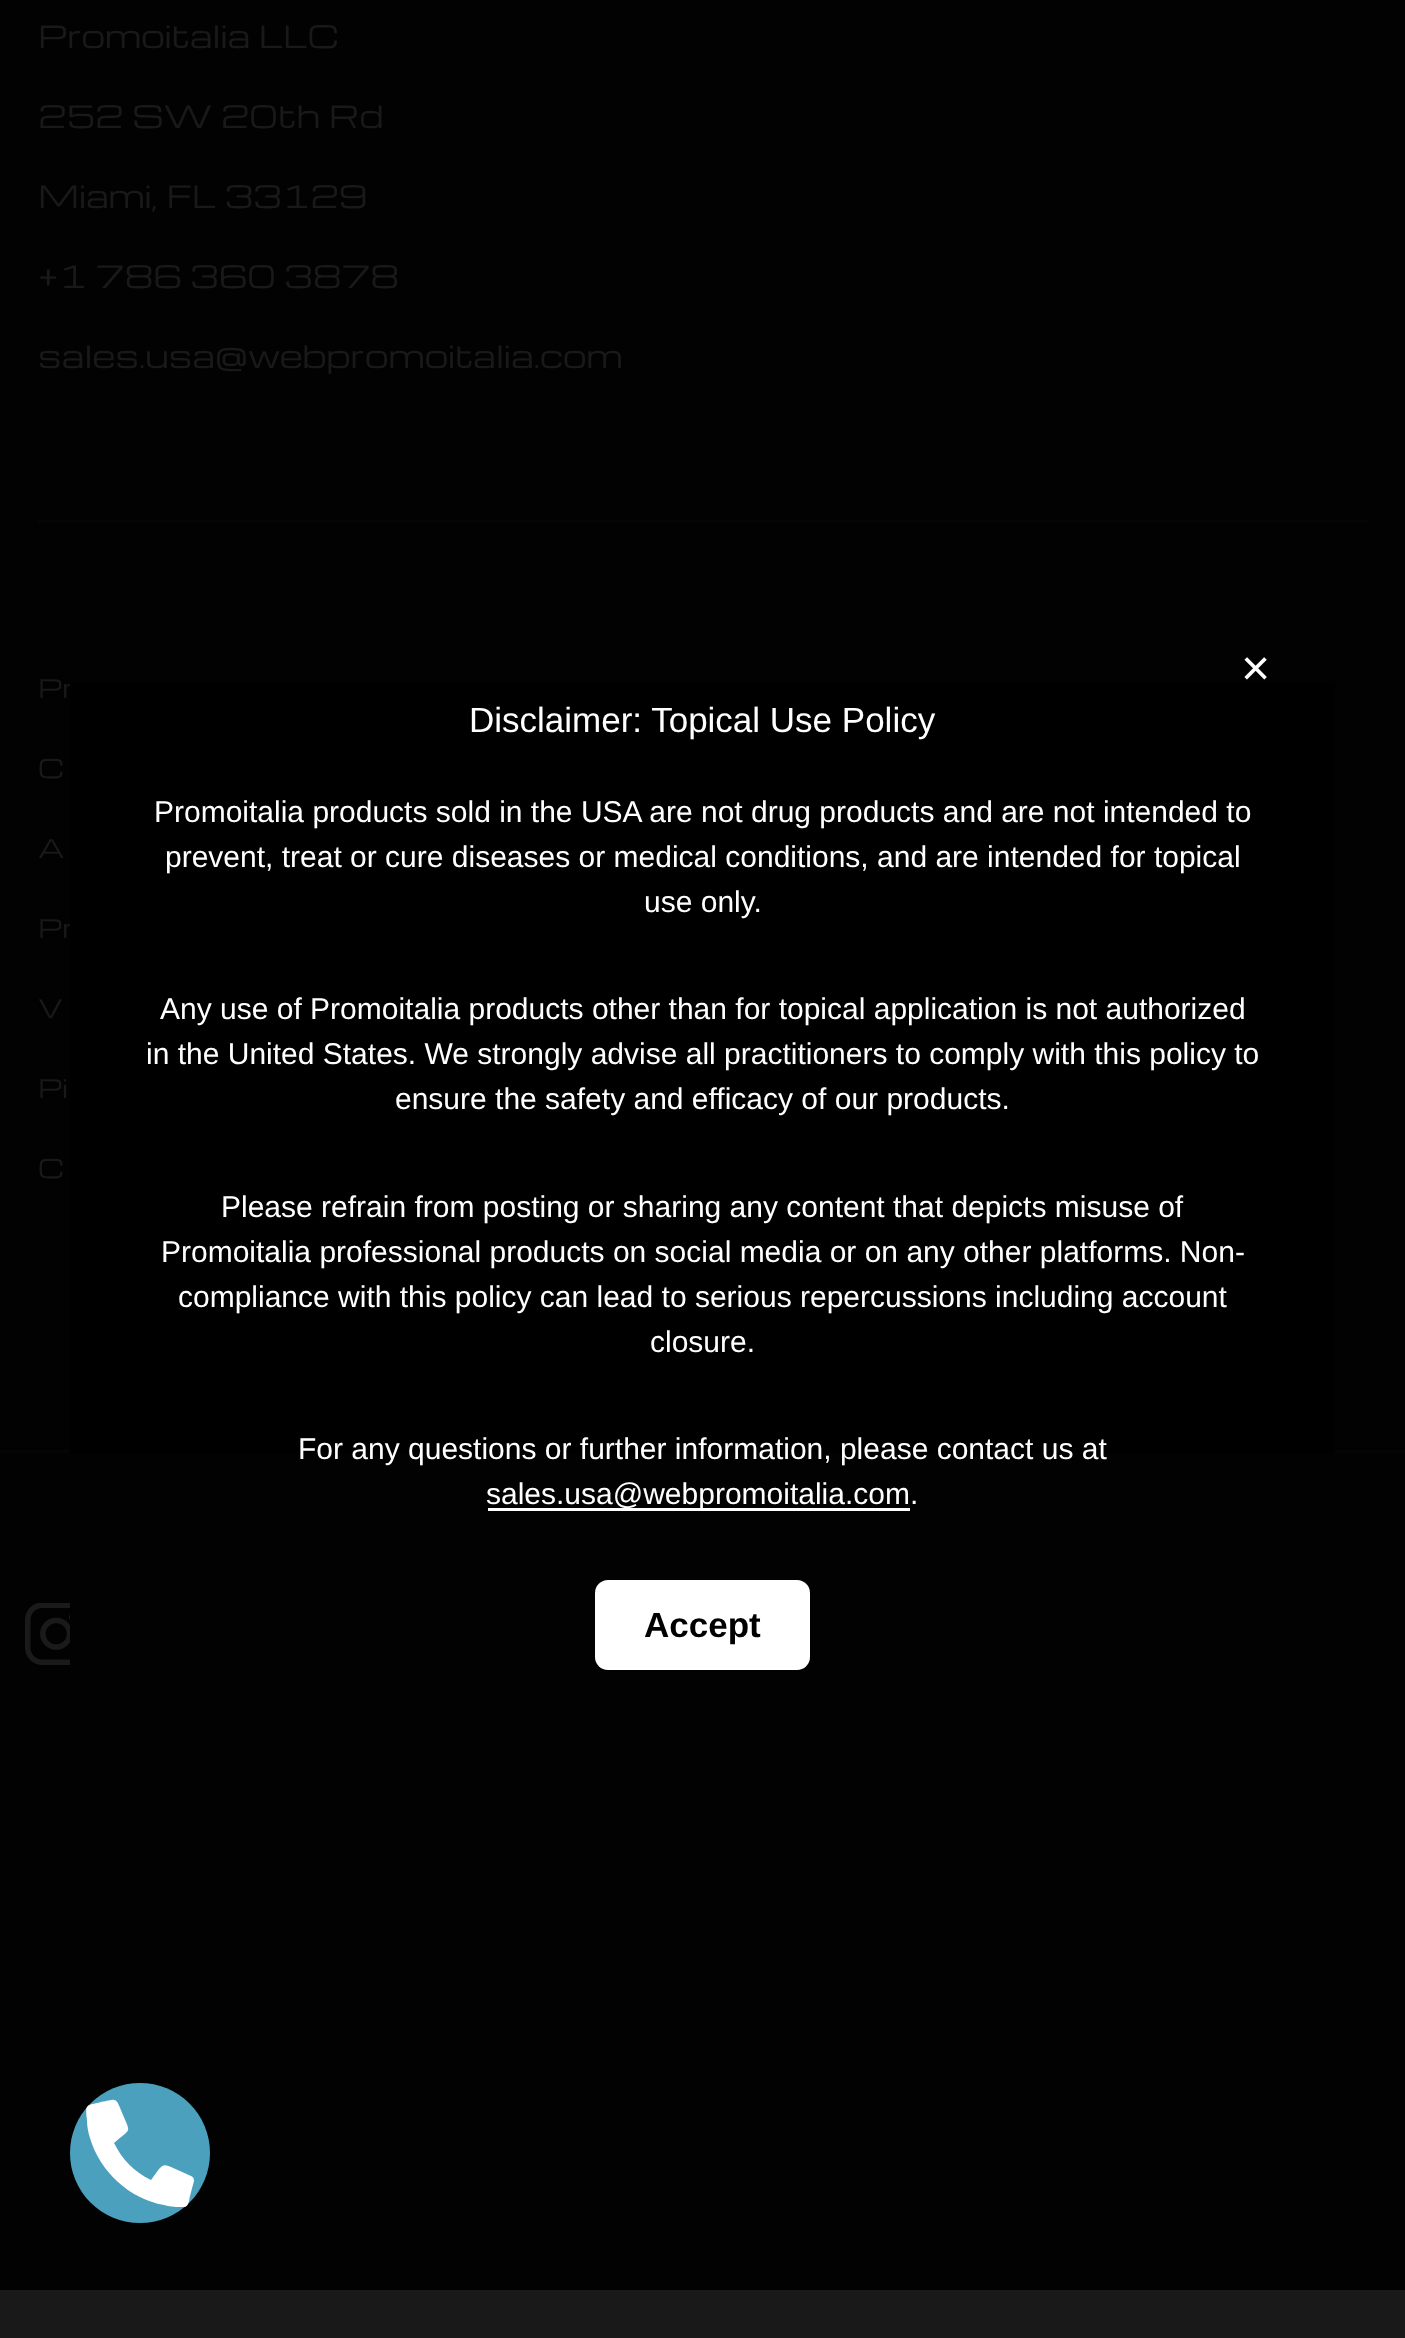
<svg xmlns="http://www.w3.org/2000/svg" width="1405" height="2338">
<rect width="100%" height="100%" fill="#191919"/>
<rect width="1405" height="1450" fill="#020202"/>
<text x="38" y="48" style="font-family:Michroma;font-size:30px;fill:#191919">Promoitalia LLC</text>
<text x="38" y="128" style="font-family:Michroma;font-size:30px;fill:#191919">252 SW 20th Rd</text>
<text x="38" y="208" style="font-family:Michroma;font-size:30px;fill:#191919">Miami, FL 33129</text>
<text x="38" y="288" style="font-family:Michroma;font-size:30px;fill:#191919">+1 786 360 3878</text>
<text x="38" y="368" style="font-family:Michroma;font-size:30px;fill:#191919">sales.usa@webpromoitalia.com</text>
<rect x="38" y="520" width="1330" height="3" fill="#050505"/>
<text x="38" y="698" style="font-family:Michroma;font-size:25px;fill:#191919">Pr</text>
<text x="38" y="778" style="font-family:Michroma;font-size:25px;fill:#191919">C</text>
<text x="38" y="858" style="font-family:Michroma;font-size:25px;fill:#191919">A</text>
<text x="38" y="938" style="font-family:Michroma;font-size:25px;fill:#191919">Pr</text>
<text x="38" y="1018" style="font-family:Michroma;font-size:25px;fill:#191919">V</text>
<text x="38" y="1098" style="font-family:Michroma;font-size:25px;fill:#191919">Pi</text>
<text x="38" y="1178" style="font-family:Michroma;font-size:25px;fill:#191919">C</text>
<rect y="1450" width="1405" height="3" fill="#050505"/>
<rect x="70" y="683" width="1265" height="770" fill="#000"/>
<text x="1241" y="685" style="font-family:Liberation Sans;font-size:50px;fill:#fff">×</text>
<text x="469" y="732" style="font-family:Liberation Sans;font-size:35px;fill:#fff">Disclaimer: Topical Use Policy</text>
<text x="154" y="822" style="font-family:Liberation Sans;font-size:30px;fill:#fff">Promoitalia products sold in the USA are not drug products and are not intended to</text>
<text x="165" y="867" style="font-family:Liberation Sans;font-size:30px;fill:#fff">prevent, treat or cure diseases or medical conditions, and are intended for topical</text>
<text x="644" y="912" style="font-family:Liberation Sans;font-size:30px;fill:#fff">use only.</text>
<text x="160" y="1019" style="font-family:Liberation Sans;font-size:30px;fill:#fff">Any use of Promoitalia products other than for topical application is not authorized</text>
<text x="146" y="1064" style="font-family:Liberation Sans;font-size:30px;fill:#fff">in the United States. We strongly advise all practitioners to comply with this policy to</text>
<text x="395" y="1109" style="font-family:Liberation Sans;font-size:30px;fill:#fff">ensure the safety and efficacy of our products.</text>
<text x="221" y="1217" style="font-family:Liberation Sans;font-size:30px;fill:#fff">Please refrain from posting or sharing any content that depicts misuse of</text>
<text x="161" y="1262" style="font-family:Liberation Sans;font-size:30px;fill:#fff">Promoitalia professional products on social media or on any other platforms. Non-</text>
<text x="178" y="1307" style="font-family:Liberation Sans;font-size:30px;fill:#fff">compliance with this policy can lead to serious repercussions including account</text>
<text x="650" y="1352" style="font-family:Liberation Sans;font-size:30px;fill:#fff">closure.</text>
<rect y="1453" width="1405" height="837" fill="#020202"/>
<text x="298" y="1459" style="font-family:Liberation Sans;font-size:30px;fill:#fff">For any questions or further information, please contact us at</text>
<rect x="488" y="1508" width="422" height="3" fill="#fff"/>
<text x="486" y="1504" style="font-family:Liberation Sans;font-size:30px;fill:#fff">sales.usa@webpromoitalia.com.</text>
<rect x="595" y="1580" width="215" height="90" rx="13" fill="#fff"/>
<text x="644" y="1637" style="font-family:Liberation Sans;font-size:35px;font-weight:bold;fill:#000">Accept</text>
<image x="25" y="1603" width="45" height="62" href="media/1.png"/>
<circle cx="140" cy="2153" r="70" fill="#4ba0be"/>
<path d="M191 2176c2 1 3 2 3 5l-4 15c-1 4-1 11-6 11c-8 0-12 0-20-2c-34-6-64-33-74-67c-2-6-3-12-3-18c-2-17-1-14 14-18c17-3 14-6 22 13c8 19 8 13-9 28c8 16 20 29 37 37l8-11c5-5 6-4 12-2z" fill="#fff"/>
</svg>
